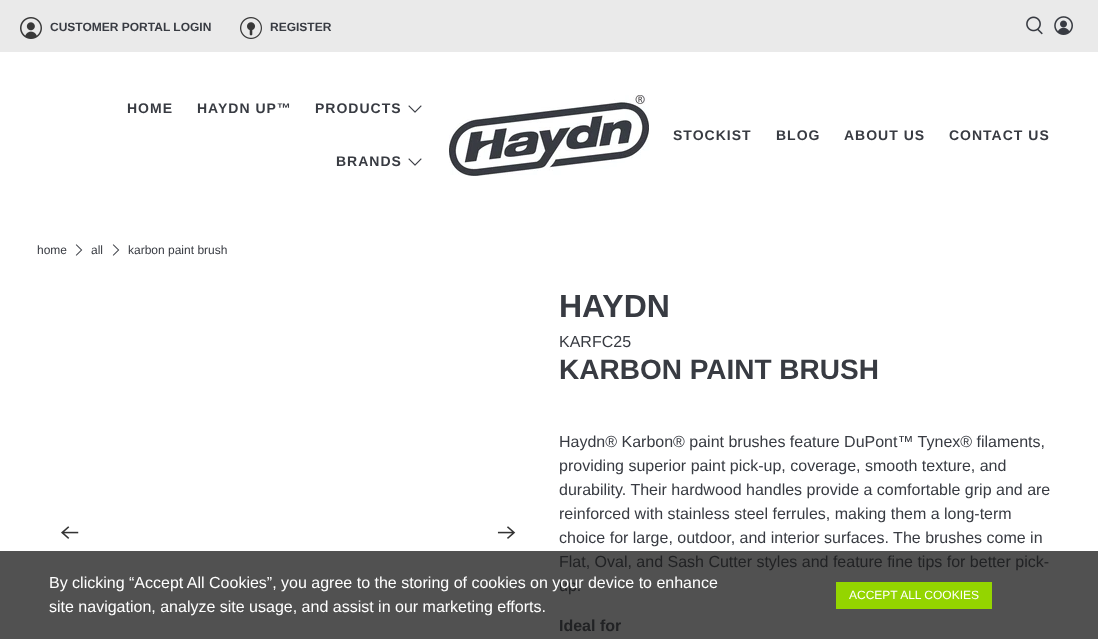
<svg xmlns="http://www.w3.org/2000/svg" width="1098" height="639">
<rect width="100%" height="100%" fill="#fff"/>
<rect y="551" width="1098" height="88" fill="#515151"/>
<rect width="1098" height="52" fill="#eaeaea"/>
<image x="20" y="17" width="22" height="22" href="media/1.png"/>
<text x="50" y="31" style="font-family:Liberation Sans;font-size:12px;font-weight:bold;fill:#383b42">CUSTOMER PORTAL LOGIN</text>
<image x="240" y="17" width="22" height="22" href="media/2.png"/>
<text x="270" y="31" style="font-family:Liberation Sans;font-size:12px;font-weight:bold;fill:#383b42">REGISTER</text>
<image x="1026" y="16" width="17" height="19" href="media/3.png"/>
<image x="1054" y="16" width="19" height="19" href="media/4.png"/>
<text x="127" y="113" style="font-family:Liberation Sans;font-size:14px;font-weight:bold;letter-spacing:1px;fill:#383b42">HOME</text>
<text x="197" y="113" style="font-family:Liberation Sans;font-size:14px;font-weight:bold;letter-spacing:1px;fill:#383b42">HAYDN UP™</text>
<text x="315" y="113" style="font-family:Liberation Sans;font-size:14px;font-weight:bold;letter-spacing:1px;fill:#383b42">PRODUCTS</text>
<image x="408" y="105" width="14" height="8" href="media/5.png"/>
<text x="336" y="166" style="font-family:Liberation Sans;font-size:14px;font-weight:bold;letter-spacing:1px;fill:#383b42">BRANDS</text>
<image x="408" y="158" width="14" height="8" href="media/5.png"/>
<image x="449" y="95" width="200" height="81" href="media/6.png"/>
<text x="673" y="140" style="font-family:Liberation Sans;font-size:14px;font-weight:bold;letter-spacing:1px;fill:#383b42">STOCKIST</text>
<text x="776" y="140" style="font-family:Liberation Sans;font-size:14px;font-weight:bold;letter-spacing:1px;fill:#383b42">BLOG</text>
<text x="844" y="140" style="font-family:Liberation Sans;font-size:14px;font-weight:bold;letter-spacing:1px;fill:#383b42">ABOUT US</text>
<text x="949" y="140" style="font-family:Liberation Sans;font-size:14px;font-weight:bold;letter-spacing:1px;fill:#383b42">CONTACT US</text>
<text x="37" y="254" style="font-family:Liberation Sans;font-size:12px;fill:#383b42">home</text>
<image x="75" y="244" width="8" height="12" href="media/7.png"/>
<text x="91" y="254" style="font-family:Liberation Sans;font-size:12px;fill:#383b42">all</text>
<image x="112" y="244" width="8" height="12" href="media/7.png"/>
<text x="128" y="254" style="font-family:Liberation Sans;font-size:12px;fill:#383b42">karbon paint brush</text>
<image x="61" y="526" width="18" height="13" href="media/8.png"/>
<image x="497" y="526" width="19" height="13" href="media/9.png"/>
<text x="559" y="317" style="font-family:Liberation Sans;font-size:32px;font-weight:bold;fill:#383b42">HAYDN</text>
<text x="559" y="347" style="font-family:Liberation Sans;font-size:16px;fill:#383b42">KARFC25</text>
<text x="559" y="379" style="font-family:Liberation Sans;font-size:28px;font-weight:bold;fill:#383b42">KARBON PAINT BRUSH</text>
<text x="559" y="447" style="font-family:Liberation Sans;font-size:16px;fill:#383b42">Haydn® Karbon® paint brushes feature DuPont™ Tynex® filaments,</text>
<text x="559" y="471" style="font-family:Liberation Sans;font-size:16px;fill:#383b42">providing superior paint pick-up, coverage, smooth texture, and</text>
<text x="559" y="495" style="font-family:Liberation Sans;font-size:16px;fill:#383b42">durability. Their hardwood handles provide a comfortable grip and are</text>
<text x="559" y="519" style="font-family:Liberation Sans;font-size:16px;fill:#383b42">reinforced with stainless steel ferrules, making them a long-term</text>
<text x="559" y="543" style="font-family:Liberation Sans;font-size:16px;fill:#383b42">choice for large, outdoor, and interior surfaces. The brushes come in</text>
<text x="559" y="567" style="font-family:Liberation Sans;font-size:16px;fill:#212224">Flat, Oval, and Sash Cutter styles and feature fine tips for better pick-</text>
<text x="559" y="591" style="font-family:Liberation Sans;font-size:16px;fill:#212224">up.</text>
<text x="559" y="631" style="font-family:Liberation Sans;font-size:16px;font-weight:bold;fill:#212224">Ideal for</text>
<text x="49" y="588" style="font-family:Liberation Sans;font-size:16px;fill:#fff">By clicking “Accept All Cookies”, you agree to the storing of cookies on your device to enhance</text>
<text x="49" y="612" style="font-family:Liberation Sans;font-size:16px;fill:#fff">site navigation, analyze site usage, and assist in our marketing efforts.</text>
<rect x="836" y="582" width="156" height="27" fill="#94d500"/>
<text x="849" y="599" style="font-family:Liberation Sans;font-size:12px;fill:#fff">ACCEPT ALL COOKIES</text>
</svg>
